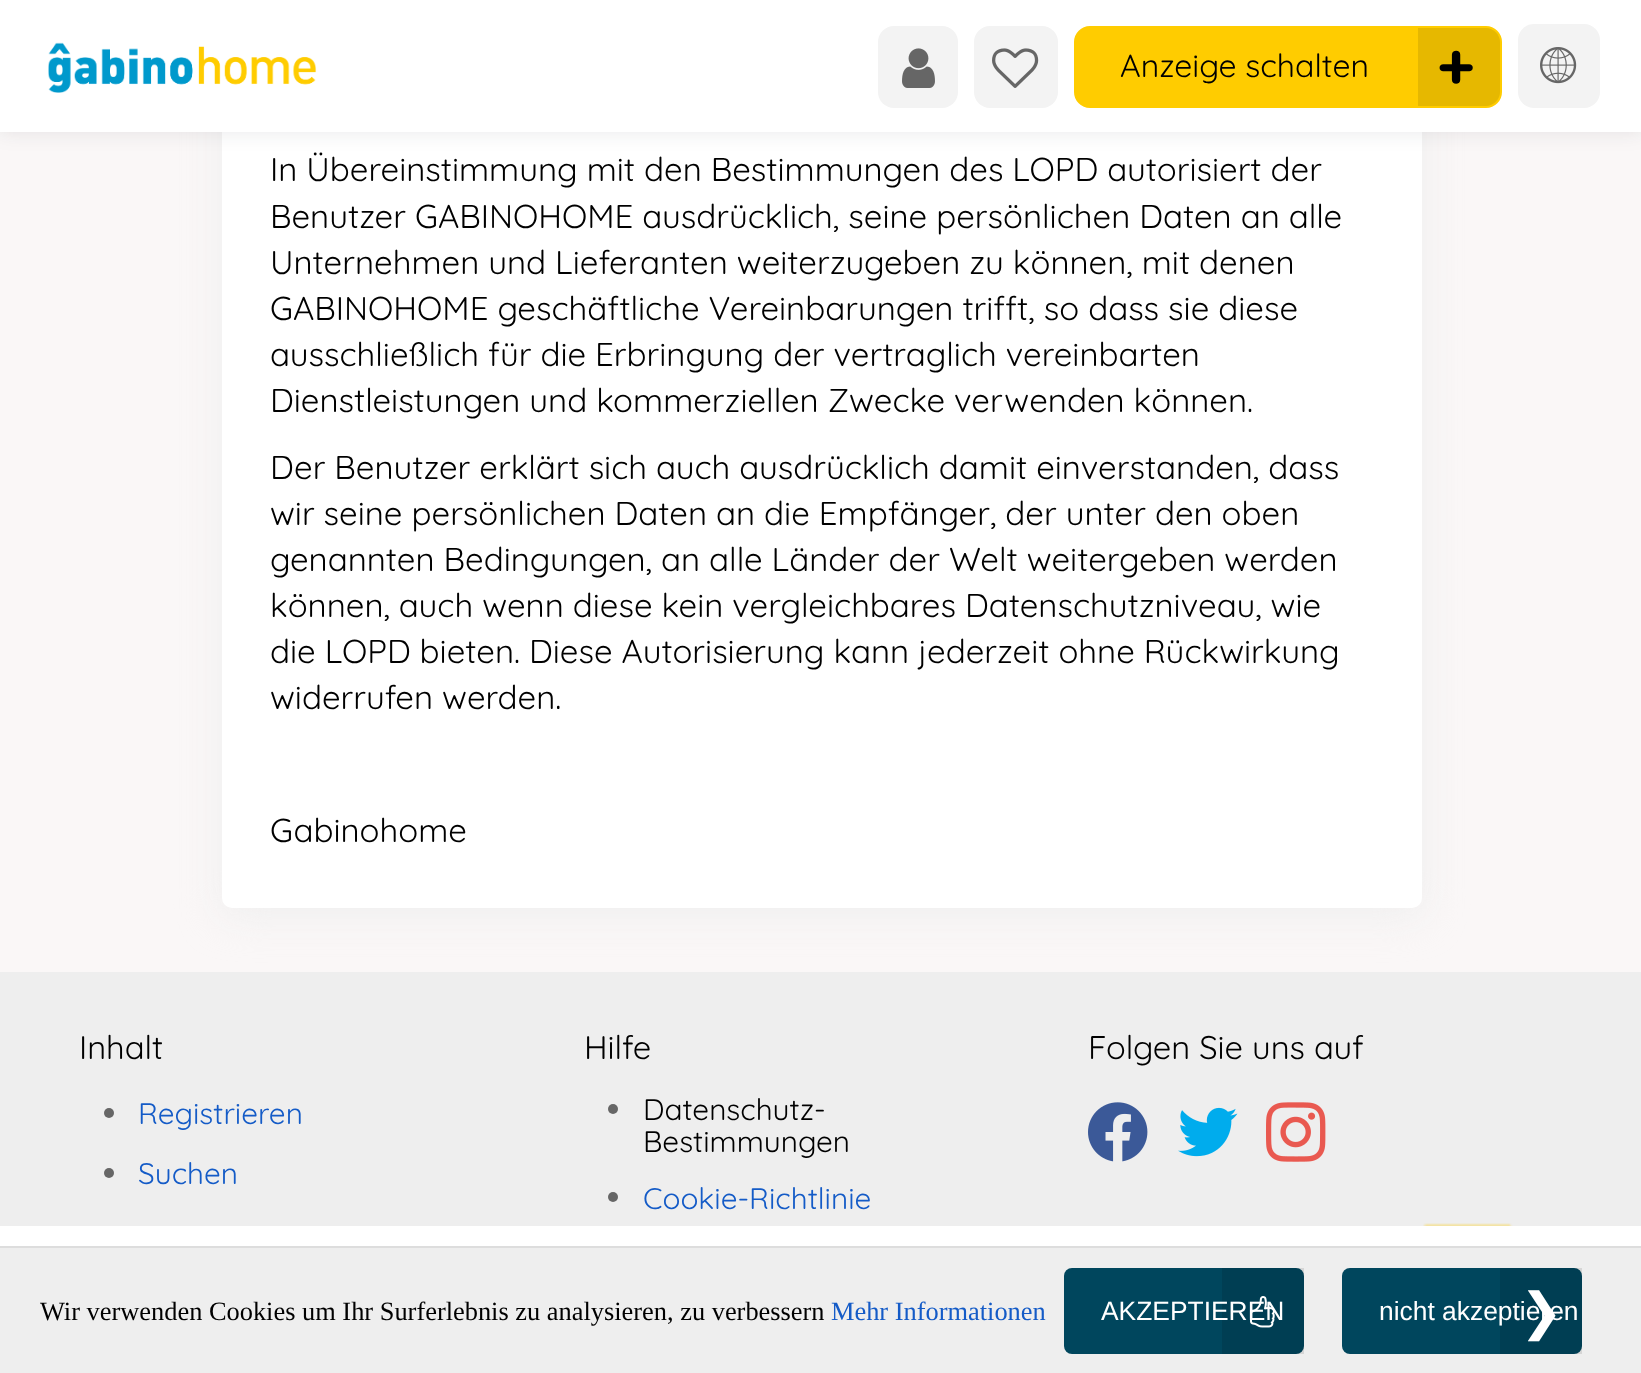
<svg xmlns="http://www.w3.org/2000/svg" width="1641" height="1373">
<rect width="100%" height="100%" fill="#faf7f7"/>
<rect y="972" width="1641" height="254" fill="#eee"/>
<rect x="222" y="-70" width="1200" height="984" rx="10" fill="#eee" filter="blur(20px)"/>
<rect x="222" y="-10" width="1200" height="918" rx="10" fill="#fff"/>
<rect width="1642" height="132" fill="#171b241a" filter="blur(10px)"/>
<rect width="1641" height="132" fill="#fff"/>
<image x="48" y="42" width="269" height="51" href="media/1.png"/>
<rect x="878" y="26" width="80" height="82" rx="16" fill="#f3f3f3"/>
<image x="902" y="48" width="33" height="40" href="media/2.png"/>
<rect x="974" y="26" width="84" height="82" rx="16" fill="#f3f3f3"/>
<image x="992" y="48" width="47" height="40" href="media/3.png"/>
<rect x="1075" y="27" width="426" height="80" rx="15" fill="#fc0" stroke="#fc0" stroke-width="2"/>
<path d="M1418 28h68c7.5 0 14 6.5 14 14v50c0 7.5-6.5 14-14 14h-68z" fill="#e6b800"/>
<text x="1120" y="77" style="font-family:Quicksand;font-size:32px;font-weight:300;fill:#000">Anzeige schalten</text>
<text x="1437" y="89" style="font-family:'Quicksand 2';font-size:64px;font-weight:300;fill:#000">+</text>
<rect x="1518" y="24" width="82" height="84" rx="16" fill="#f3f3f3"/>
<image x="1540" y="47" width="37" height="37" href="media/4.png"/>
<text x="270" y="181" style="font-family:Quicksand;font-size:33px;font-weight:300;fill:#000">In Übereinstimmung mit den Bestimmungen des LOPD autorisiert der</text>
<text x="270" y="228" style="font-family:Quicksand;font-size:33px;font-weight:300;fill:#000">Benutzer GABINOHOME ausdrücklich, seine persönlichen Daten an alle</text>
<text x="270" y="274" style="font-family:Quicksand;font-size:33px;font-weight:300;fill:#000">Unternehmen und Lieferanten weiterzugeben zu können, mit denen</text>
<text x="270" y="320" style="font-family:Quicksand;font-size:33px;font-weight:300;fill:#000">GABINOHOME geschäftliche Vereinbarungen trifft, so dass sie diese</text>
<text x="270" y="366" style="font-family:Quicksand;font-size:33px;font-weight:300;fill:#000">ausschließlich für die Erbringung der vertraglich vereinbarten</text>
<text x="270" y="412" style="font-family:Quicksand;font-size:33px;font-weight:300;fill:#000">Dienstleistungen und kommerziellen Zwecke verwenden können.</text>
<text x="270" y="479" style="font-family:Quicksand;font-size:33px;font-weight:300;fill:#000">Der Benutzer erklärt sich auch ausdrücklich damit einverstanden, dass</text>
<text x="270" y="525" style="font-family:Quicksand;font-size:33px;font-weight:300;fill:#000">wir seine persönlichen Daten an die Empfänger, der unter den oben</text>
<text x="270" y="571" style="font-family:Quicksand;font-size:33px;font-weight:300;fill:#000">genannten Bedingungen, an alle Länder der Welt weitergeben werden</text>
<text x="270" y="617" style="font-family:Quicksand;font-size:33px;font-weight:300;fill:#000">können, auch wenn diese kein vergleichbares Datenschutzniveau, wie</text>
<text x="270" y="663" style="font-family:Quicksand;font-size:33px;font-weight:300;fill:#000">die LOPD bieten. Diese Autorisierung kann jederzeit ohne Rückwirkung</text>
<text x="270" y="709" style="font-family:Quicksand;font-size:33px;font-weight:300;fill:#000">widerrufen werden.</text>
<text x="270" y="842" style="font-family:Quicksand;font-size:33px;font-weight:300;fill:#000">Gabinohome</text>
<image x="1423" y="1223" width="90" height="3" href="media/5.png"/>
<text x="79" y="1059" style="font-family:Quicksand;font-size:32.75px;font-weight:300;fill:#000">Inhalt</text>
<circle cx="109" cy="1113" r="5" fill="#666"/>
<text x="138" y="1124" style="font-family:Quicksand;font-size:29.75px;font-weight:300;fill:#145bc7">Registrieren</text>
<circle cx="109" cy="1173" r="5" fill="#666"/>
<text x="138" y="1184" style="font-family:Quicksand;font-size:29.75px;font-weight:300;fill:#145bc7">Suchen</text>
<text x="584" y="1059" style="font-family:Quicksand;font-size:32.75px;font-weight:300;fill:#000">Hilfe</text>
<circle cx="613" cy="1109" r="5" fill="#666"/>
<text x="643" y="1120" style="font-family:Quicksand;font-size:29.75px;font-weight:300;fill:#000">Datenschutz-</text>
<text x="643" y="1152" style="font-family:Quicksand;font-size:29.75px;font-weight:300;fill:#000">Bestimmungen</text>
<circle cx="613" cy="1197" r="5" fill="#666"/>
<text x="643" y="1209" style="font-family:Quicksand;font-size:29.75px;font-weight:300;fill:#145bc7">Cookie-Richtlinie</text>
<text x="1088" y="1059" style="font-family:Quicksand;font-size:32.75px;font-weight:300;fill:#000">Folgen Sie uns auf</text>
<image x="1088" y="1102" width="60" height="60" href="media/6.png"/>
<image x="1178" y="1107" width="60" height="50" href="media/7.png"/>
<image x="1266" y="1102" width="60" height="60" href="media/8.png"/>
<rect y="1226" width="1641" height="20" fill="#fff"/>
<rect y="1248" width="1641" height="125" fill="#eee"/>
<rect y="1246" width="1641" height="2" fill="#ddd"/>
<text x="40" y="1320" style="font-family:Liberation Serif;font-size:26.4px;fill:#000">Wir verwenden Cookies um Ihr Surferlebnis zu analysieren, zu verbessern</text>
<text x="831" y="1320" style="font-family:Liberation Serif;font-size:26.4px;fill:#145bc7">Mehr Informationen</text>
<rect x="1064" y="1268" width="240" height="86" rx="8" fill="#00465d"/>
<rect x="1222" y="1268" width="82" height="86" fill="#0000001a"/>
<text x="1101" y="1320" style="font-family:Liberation Sans;font-size:26.4px;fill:#fff">AKZEPTIEREN</text>
<image x="1250" y="1296" width="25" height="32" href="media/9.png"/>
<rect x="1342" y="1268" width="240" height="86" rx="8" fill="#00465d"/>
<rect x="1500" y="1268" width="82" height="86" fill="#0000001a"/>
<text x="1379" y="1320" style="font-family:Liberation Sans;font-size:26.4px;fill:#fff">nicht akzeptieren</text>
<text x="1520" y="1329" style="font-family:DejaVu Sans;font-size:51px;fill:#fff">❯</text>
</svg>
